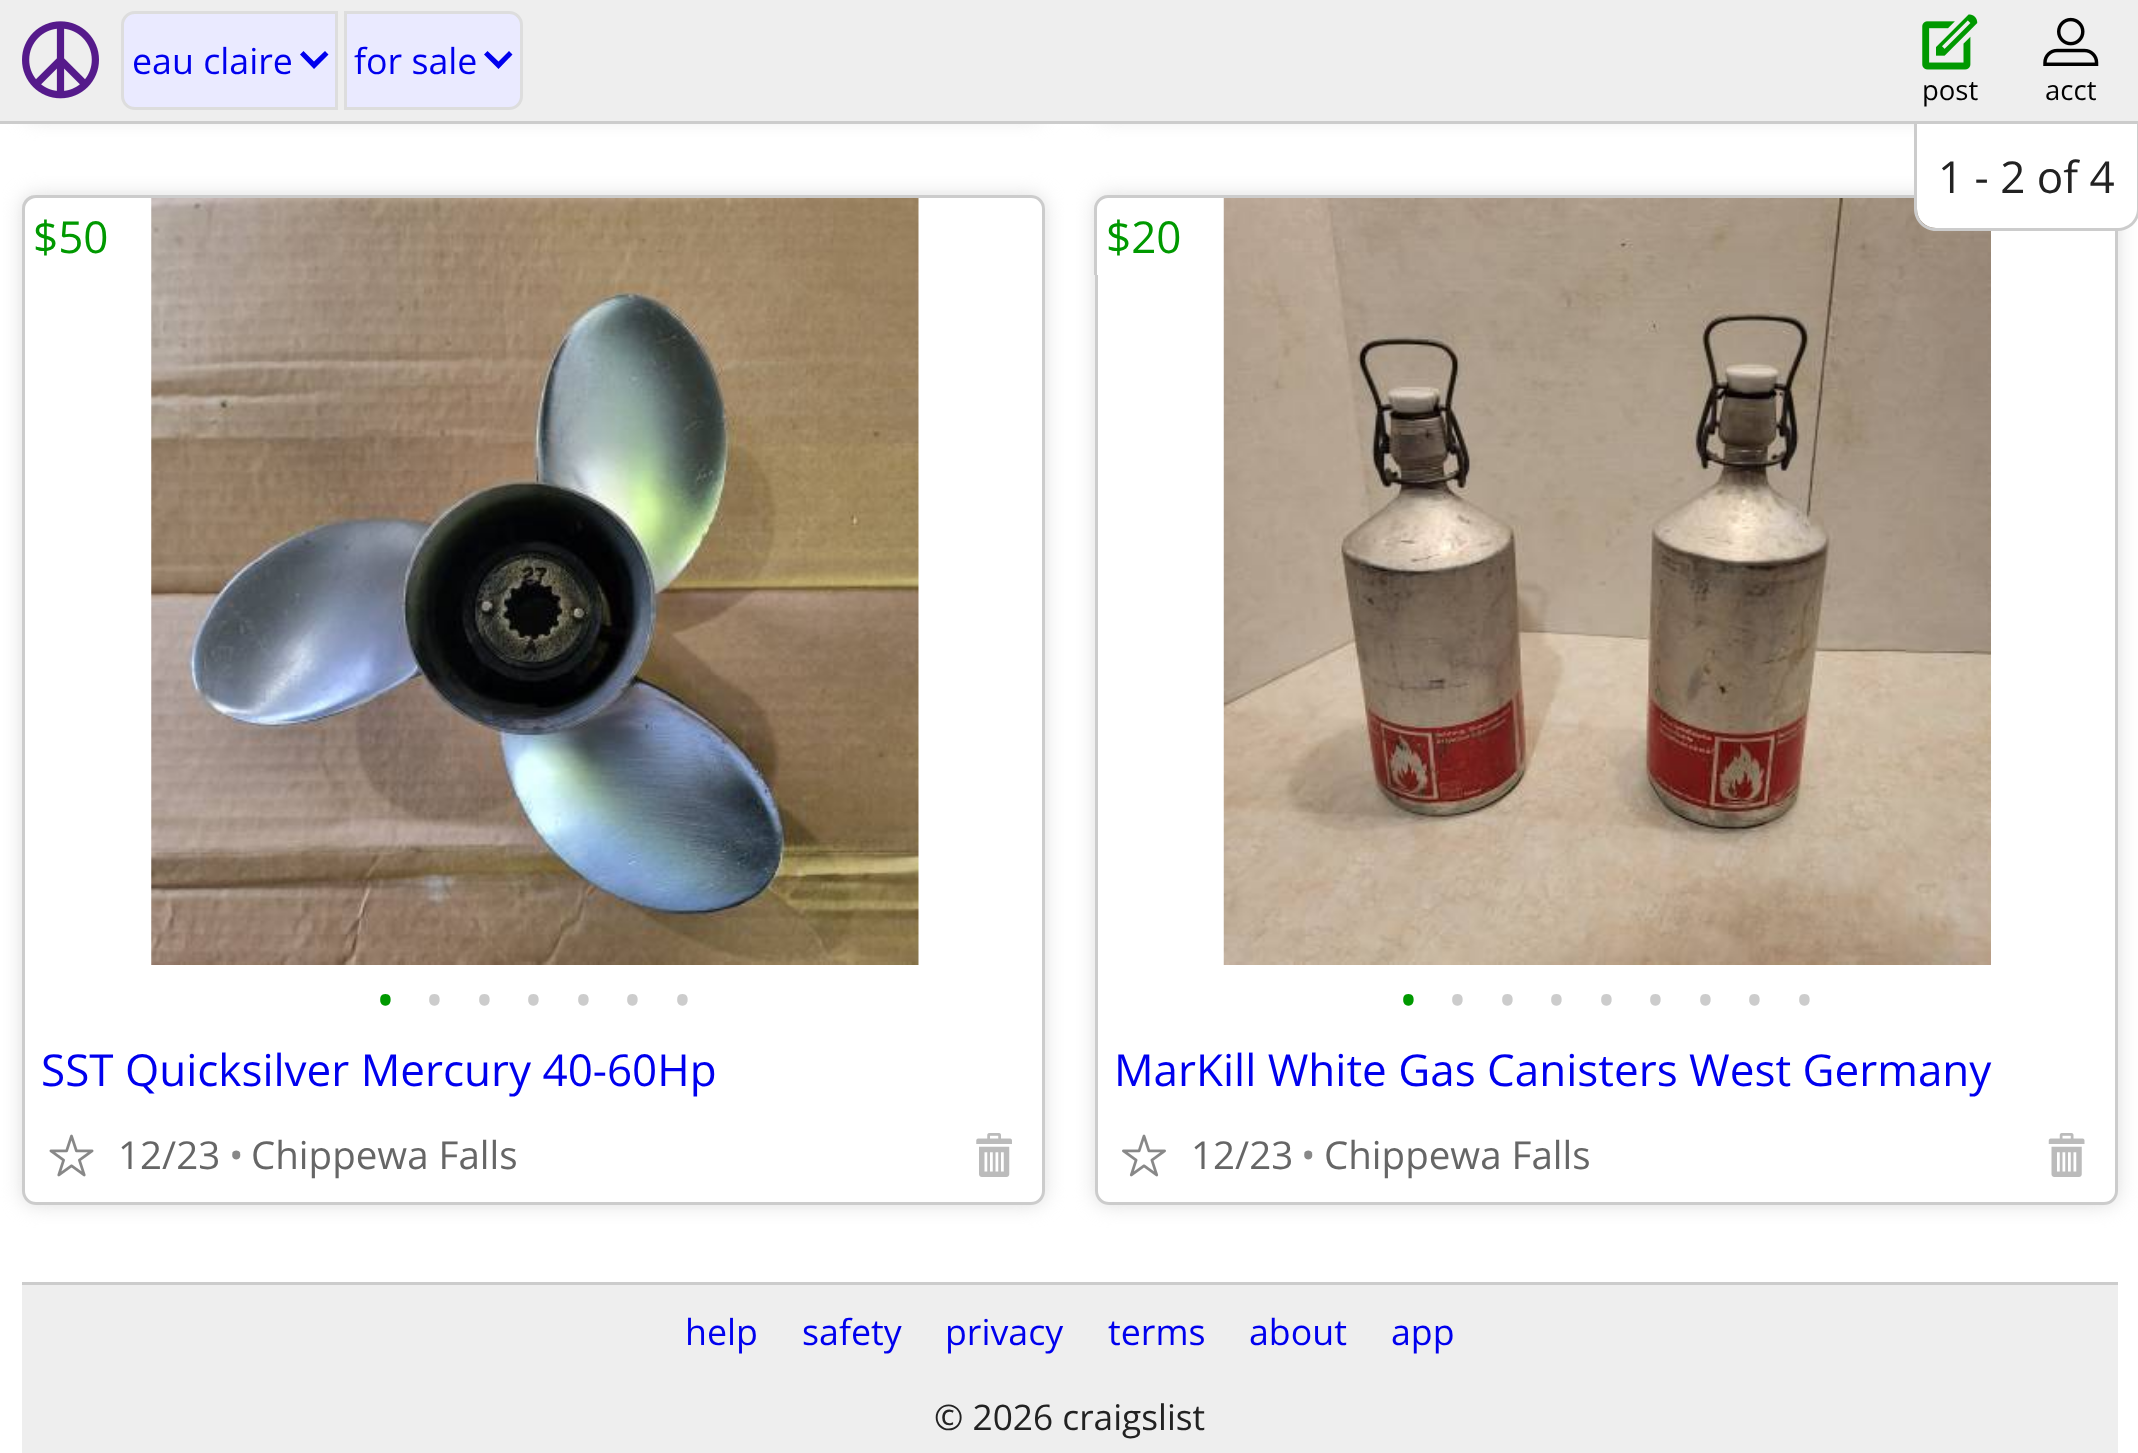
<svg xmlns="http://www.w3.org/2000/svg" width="2138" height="1453">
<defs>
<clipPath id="clip1"><path d="M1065 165h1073v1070h-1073zm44 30h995c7.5 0 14 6.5 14 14v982c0 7.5-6.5 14-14 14h-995c-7.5 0-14-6.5-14-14v-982c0-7.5 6.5-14 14-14z" clip-rule="evenodd"/></clipPath>
<clipPath id="clip2"><path d="M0 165h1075v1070h-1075zm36 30h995c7.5 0 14 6.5 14 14v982c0 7.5-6.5 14-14 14h-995c-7.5 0-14-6.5-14-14v-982c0-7.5 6.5-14 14-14z" clip-rule="evenodd"/></clipPath>
</defs>
<rect width="100%" height="100%" fill="#fff"/>
<rect x="22" y="-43" width="1023" height="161" rx="14" fill="#ddd" filter="blur(9.5px)"/>
<rect x="1095" y="-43" width="1023" height="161" rx="14" fill="#ddd" filter="blur(9.5px)"/>
<rect width="2138" height="121" fill="#eee"/>
<rect y="121" width="2138" height="3" fill="#ccc"/>
<image x="22" y="21" width="77" height="78" href="media/1.png"/>
<path d="M135 12.5h201.5v96h-201.5c-7 0-12.5-5.5-12.5-12.5v-71c0-7 5.5-12.5 12.5-12.5z" fill="#eaeaff" stroke="#ddd" stroke-width="3"/>
<text x="132" y="74" style="font-family:Open Sans;font-size:35.75px;fill:#00e">eau claire</text>
<path d="M328.5 54.5l-3.5-3.5l-11 10.5l-10.5-10.5l-3.5 3.5l14 14.5z" fill="#00e"/>
<path d="M345.5 12.5h163.5c7 0 12.5 5.5 12.5 12.5v71c0 7-5.5 12.5-12.5 12.5h-163.5z" fill="#eaeaff" stroke="#ddd" stroke-width="3"/>
<text x="354" y="74" style="font-family:Open Sans;font-size:35.75px;fill:#00e">for sale</text>
<path d="M512.5 54.5l-3.5-3.5l-10.5 10.5l-11-10.5l-3.5 3.5l14.5 14.5z" fill="#00e"/>
<image x="1922" y="14" width="56" height="56" href="media/2.png"/>
<text x="1922" y="100" style="font-family:Open Sans;font-size:27.5px;fill:#000">post</text>
<image x="2043" y="17" width="56" height="49" href="media/3.png"/>
<text x="2045" y="100" style="font-family:Open Sans;font-size:27.5px;fill:#000">acct</text>
<g clip-path="url(#clip1)">
<rect x="1095" y="195" width="1023" height="1010" rx="14" fill="#ddd" filter="blur(9.5px)"/>
</g>
<rect x="1096.5" y="196.5" width="1020" height="1007" rx="12.5" fill="none" stroke="#ccc" stroke-width="3"/>
<image x="1223" y="198" width="768" height="767" href="media/7.png"/>
<path d="M1917 124h220v85c0 10.5-8.5 19-19 19h-182c-10.5 0-19-8.5-19-19z" fill="#fff"/>
<path d="M1914 124h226v85c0 12-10 22-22 22h-182c-12 0-22-10-22-22zm3 0h220v85c0 11-9 19-19 19h-182c-11 0-19-8-19-19z" fill="#ccc" fill-rule="evenodd"/>
<text x="1938" y="193" style="font-family:Open Sans;font-size:44px;fill:#222">1 - 2 of 4</text>
<g clip-path="url(#clip2)">
<rect x="22" y="195" width="1023" height="1010" rx="14" fill="#ddd" filter="blur(9.5px)"/>
</g>
<rect x="23.5" y="196.5" width="1020" height="1007" rx="12.5" fill="none" stroke="#ccc" stroke-width="3"/>
<path d="M36 195h80v66c0 7.5-6.5 14-14 14h-80v-66c0-7.5 6.5-14 14-14z" fill="#fff"/>
<path d="M36 195h80v66c0 8-7 14-14 14h-80v-66c0-8 6-14 14-14zm0 3h80v63c0 8-7 14-14 14h-77v-66c0-6 5-11 11-11z" fill="#ccc" fill-rule="evenodd"/>
<text x="33" y="253" style="font-family:Open Sans;font-size:44px;fill:#090">$50</text>
<image x="151" y="198" width="768" height="767" href="media/4.png"/>
<text x="376" y="1018" style="font-family:Open Sans;font-size:50px;fill:#090">•</text>
<text x="425" y="1018" style="font-family:Open Sans;font-size:50px;fill:#ccc">•</text>
<text x="475" y="1018" style="font-family:Open Sans;font-size:50px;fill:#ccc">•</text>
<text x="524" y="1018" style="font-family:Open Sans;font-size:50px;fill:#ccc">•</text>
<text x="574" y="1018" style="font-family:Open Sans;font-size:50px;fill:#ccc">•</text>
<text x="623" y="1018" style="font-family:Open Sans;font-size:50px;fill:#ccc">•</text>
<text x="673" y="1018" style="font-family:Open Sans;font-size:50px;fill:#ccc">•</text>
<text x="41" y="1086" style="font-family:Open Sans;font-size:44px;fill:#00e">SST Quicksilver Mercury 40-60Hp</text>
<image x="49" y="1134" width="45" height="43" href="media/5.png"/>
<text x="118" y="1169" style="font-family:Open Sans;font-size:38.5px;fill:#666">12/23</text>
<text x="229" y="1169" style="font-family:Open Sans;font-size:38.5px;fill:#888">•</text>
<text x="251" y="1169" style="font-family:Open Sans;font-size:38.5px;fill:#666">Chippewa Falls</text>
<image x="976" y="1133" width="36" height="44" href="media/6.png"/>
<path d="M1109 195h79v66c0 7.5-6.5 14-14 14h-79v-66c0-7.5 6.5-14 14-14z" fill="#fff"/>
<path d="M1108 195h80v66c0 8-6 14-14 14h-80v-66c0-8 7-14 14-14zm0 3h80v63c0 8-6 14-14 14h-77v-66c0-6 5-11 11-11z" fill="#ccc" fill-rule="evenodd"/>
<text x="1106" y="253" style="font-family:Open Sans;font-size:44px;fill:#090">$20</text>
<text x="1399" y="1018" style="font-family:Open Sans;font-size:50px;fill:#090">•</text>
<text x="1448" y="1018" style="font-family:Open Sans;font-size:50px;fill:#ccc">•</text>
<text x="1498" y="1018" style="font-family:Open Sans;font-size:50px;fill:#ccc">•</text>
<text x="1547" y="1018" style="font-family:Open Sans;font-size:50px;fill:#ccc">•</text>
<text x="1597" y="1018" style="font-family:Open Sans;font-size:50px;fill:#ccc">•</text>
<text x="1646" y="1018" style="font-family:Open Sans;font-size:50px;fill:#ccc">•</text>
<text x="1696" y="1018" style="font-family:Open Sans;font-size:50px;fill:#ccc">•</text>
<text x="1745" y="1018" style="font-family:Open Sans;font-size:50px;fill:#ccc">•</text>
<text x="1795" y="1018" style="font-family:Open Sans;font-size:50px;fill:#ccc">•</text>
<text x="1114" y="1086" style="font-family:Open Sans;font-size:44px;fill:#00e">MarKill White Gas Canisters West Germany</text>
<image x="1122" y="1134" width="44" height="43" href="media/8.png"/>
<text x="1191" y="1169" style="font-family:Open Sans;font-size:38.5px;fill:#666">12/23</text>
<text x="1301" y="1169" style="font-family:Open Sans;font-size:38.5px;fill:#888">•</text>
<text x="1324" y="1169" style="font-family:Open Sans;font-size:38.5px;fill:#666">Chippewa Falls</text>
<image x="2048" y="1133" width="37" height="44" href="media/9.png"/>
<rect x="22" y="1285" width="2096" height="168" fill="#eee"/>
<rect x="22" y="1282" width="2096" height="3" fill="#ccc"/>
<text x="685" y="1345" style="font-family:Open Sans;font-size:35.75px;fill:#00e">help</text>
<text x="802" y="1345" style="font-family:Open Sans;font-size:35.75px;fill:#00e">safety</text>
<text x="945" y="1345" style="font-family:Open Sans;font-size:35.75px;fill:#00e">privacy</text>
<text x="1108" y="1345" style="font-family:Open Sans;font-size:35.75px;fill:#00e">terms</text>
<text x="1249" y="1345" style="font-family:Open Sans;font-size:35.75px;fill:#00e">about</text>
<text x="1391" y="1345" style="font-family:Open Sans;font-size:35.75px;fill:#00e">app</text>
<text x="934" y="1430" style="font-family:Open Sans;font-size:35.25px;fill:#222">© 2026 craigslist</text>
</svg>
